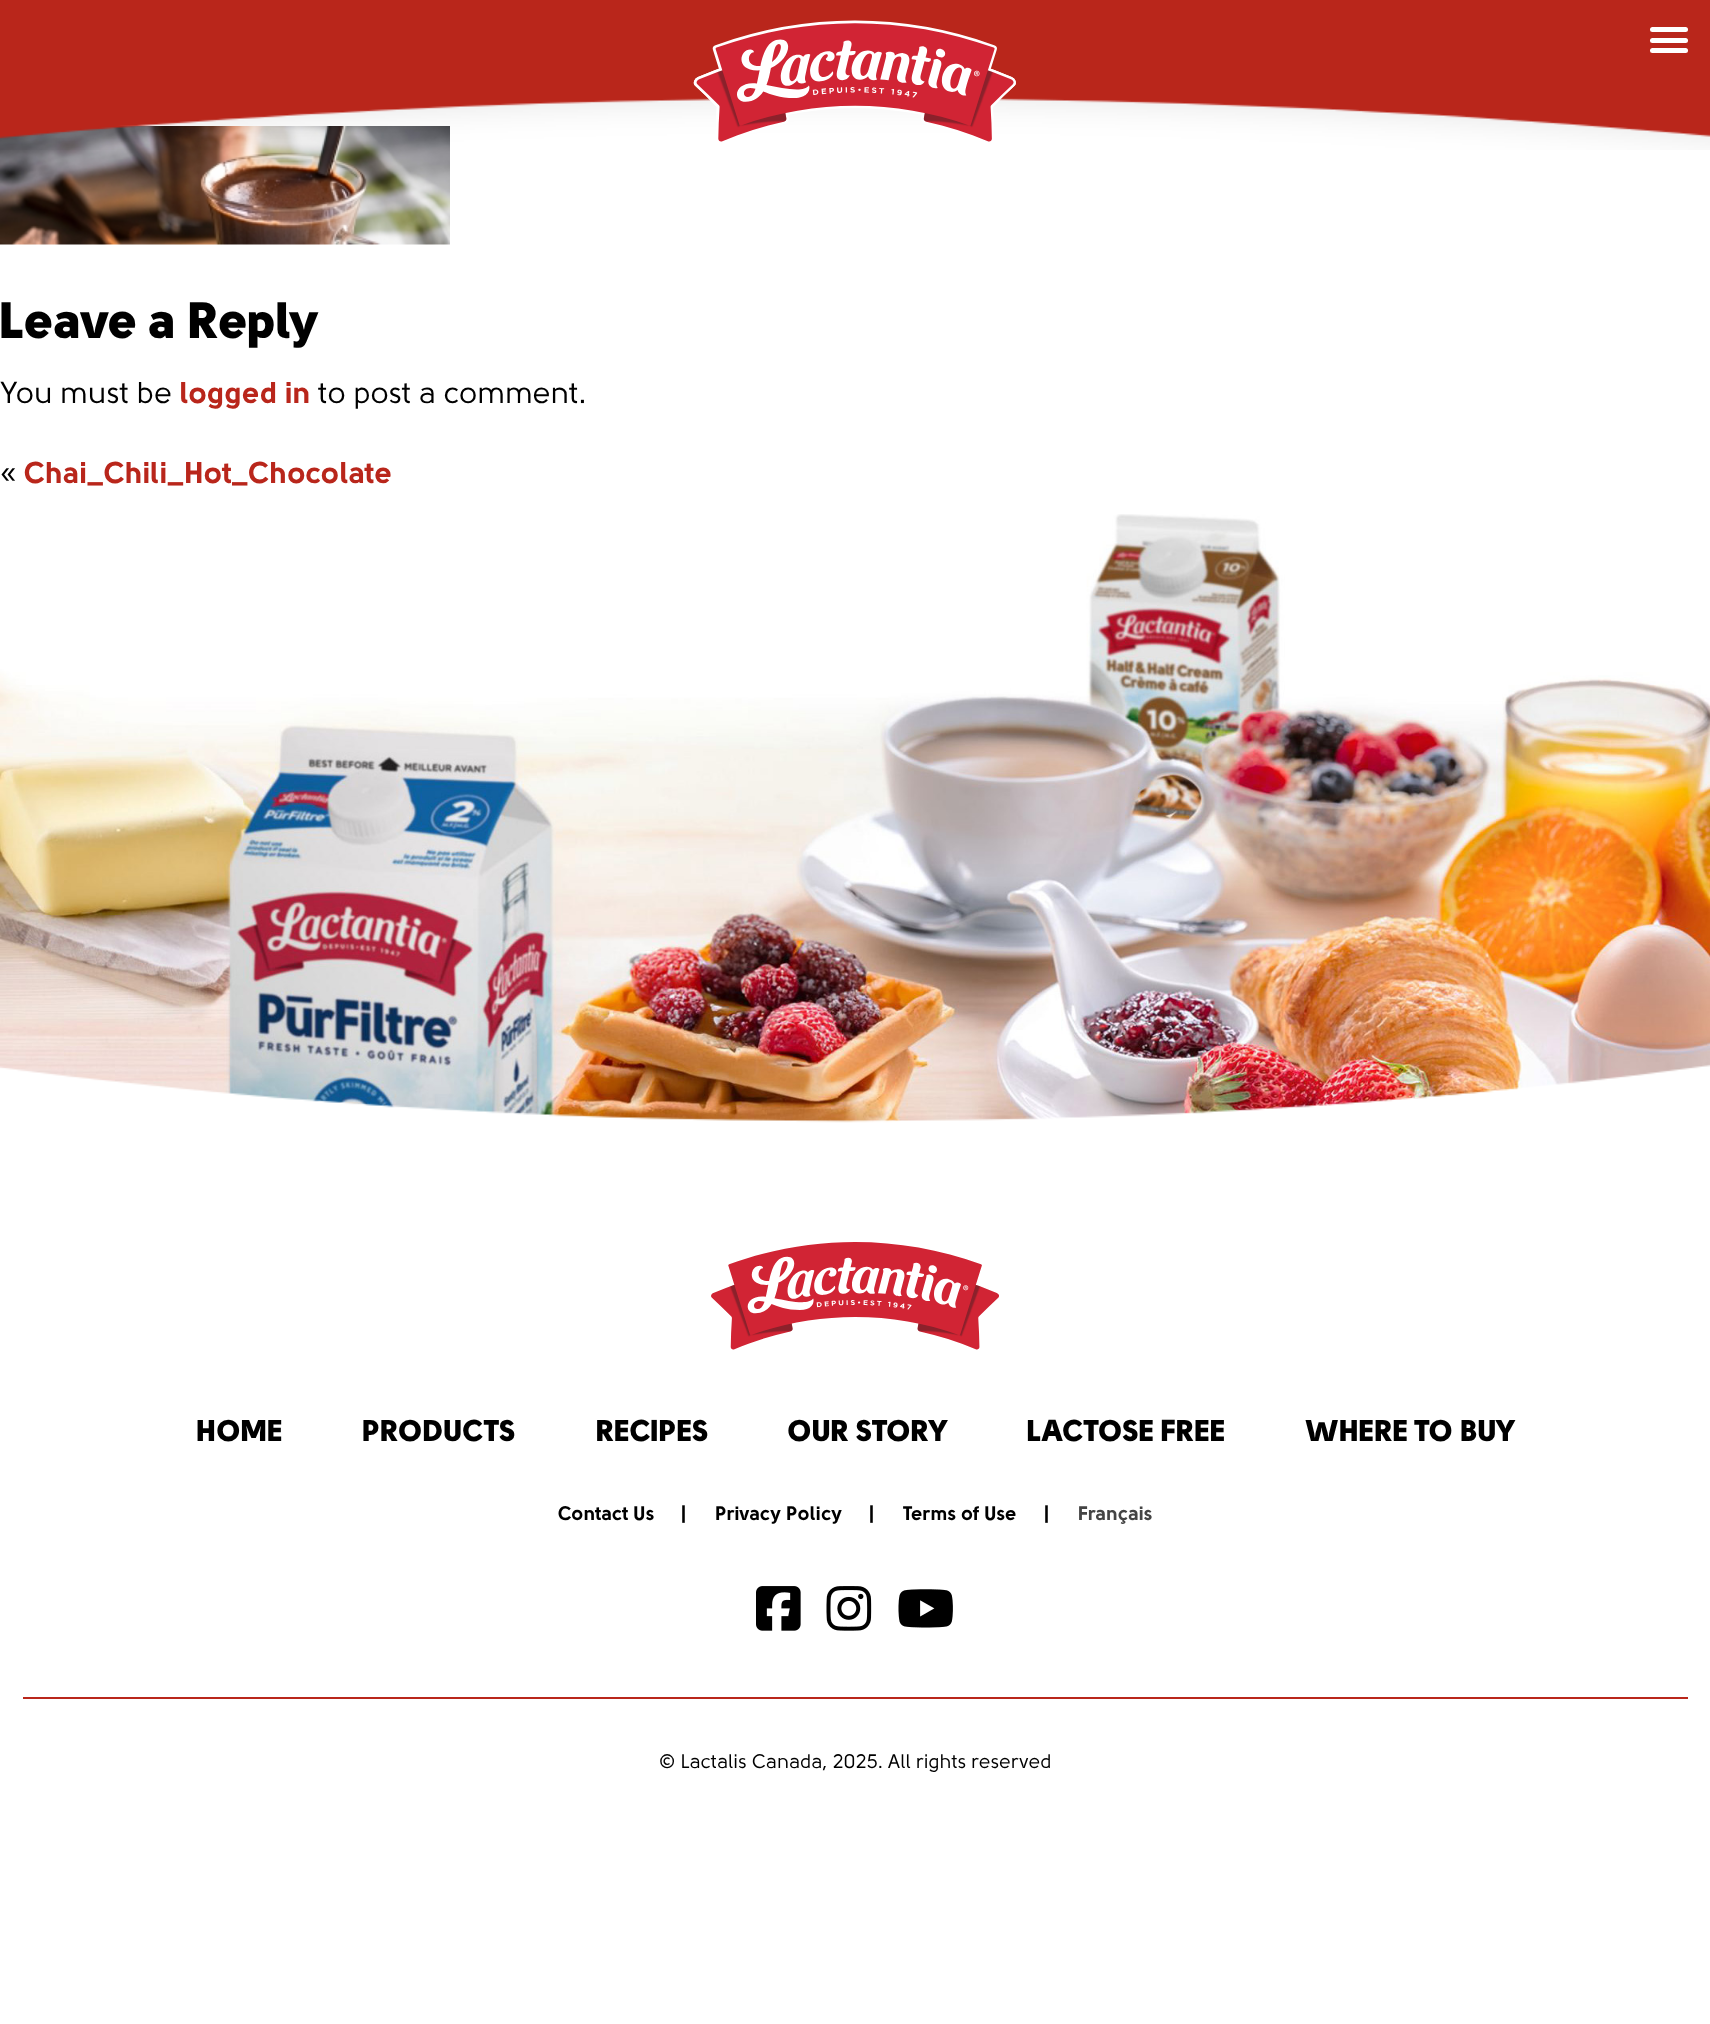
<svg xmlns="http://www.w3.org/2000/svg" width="1710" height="2024">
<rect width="100%" height="100%" fill="#fff"/>
<image x="0" y="126" width="450" height="119" href="media/3.png"/>
<image x="0" y="0" width="1710" height="150" href="media/1.png"/>
<image x="693" y="20" width="323" height="122" href="media/2.png"/>
<rect x="1650" y="27" width="38" height="5" rx="2.5" fill="#fff"/>
<rect x="1650" y="38" width="38" height="5" rx="2.5" fill="#fff"/>
<rect x="1650" y="48" width="38" height="5" rx="2.5" fill="#fff"/>
<text x="0" y="338" style="font-family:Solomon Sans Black;font-size:51px;font-weight:900;fill:#000">Leave a Reply</text>
<text x="0" y="403" style="font-family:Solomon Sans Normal;font-size:30px;fill:#000">You must be</text>
<text x="180" y="403" style="font-family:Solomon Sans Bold;font-size:30px;font-weight:bold;fill:#b9261b">logged in</text>
<text x="318" y="403" style="font-family:Solomon Sans Normal;font-size:30px;fill:#000">to post a comment.</text>
<text x="0" y="483" style="font-family:Solomon Sans Normal;font-size:30px;fill:#000">«</text>
<text x="24" y="483" style="font-family:Solomon Sans Bold;font-size:30px;font-weight:bold;fill:#b9261b">Chai_Chili_Hot_Chocolate</text>
<image x="0" y="514" width="1710" height="609" href="media/4.png"/>
<image x="0" y="1064" width="1710" height="72" href="media/5.png"/>
<image x="711" y="1242" width="288" height="108" href="media/6.png"/>
<text x="196" y="1441" style="font-family:Solomon Sans Black;font-size:30px;font-weight:900;fill:#000">HOME</text>
<text x="362" y="1441" style="font-family:Solomon Sans Black;font-size:30px;font-weight:900;fill:#000">PRODUCTS</text>
<text x="596" y="1441" style="font-family:Solomon Sans Black;font-size:30px;font-weight:900;fill:#000">RECIPES</text>
<text x="788" y="1441" style="font-family:Solomon Sans Black;font-size:30px;font-weight:900;fill:#000">OUR STORY</text>
<text x="1027" y="1441" style="font-family:Solomon Sans Black;font-size:30px;font-weight:900;fill:#000">LACTOSE FREE</text>
<text x="1306" y="1441" style="font-family:Solomon Sans Black;font-size:30px;font-weight:900;fill:#000">WHERE TO BUY</text>
<text x="558" y="1520" style="font-family:Solomon Sans Bold;font-size:19.5px;font-weight:bold;fill:#000">Contact Us</text>
<text x="681" y="1520" style="font-family:Solomon Sans Bold;font-size:19.5px;font-weight:bold;fill:#000">|</text>
<text x="715" y="1520" style="font-family:Solomon Sans Bold;font-size:19.5px;font-weight:bold;fill:#000">Privacy Policy</text>
<text x="869" y="1520" style="font-family:Solomon Sans Bold;font-size:19.5px;font-weight:bold;fill:#000">|</text>
<text x="903" y="1520" style="font-family:Solomon Sans Bold;font-size:19.5px;font-weight:bold;fill:#000">Terms of Use</text>
<text x="1044" y="1520" style="font-family:Solomon Sans Bold;font-size:19.5px;font-weight:bold;fill:#000">|</text>
<text x="1078" y="1520" style="font-family:Solomon Sans Bold;font-size:19.5px;font-weight:bold;fill:#444">Français</text>
<image x="756" y="1586" width="45" height="45" href="media/7.png"/>
<image x="826" y="1586" width="46" height="45" href="media/8.png"/>
<image x="898" y="1589" width="55" height="39" href="media/9.png"/>
<rect x="23" y="1697" width="1665" height="2" fill="#b9261b"/>
<text x="659" y="1768" style="font-family:Solomon Sans Normal;font-size:19.5px;fill:#000">© Lactalis Canada, 2025. All rights reserved</text>
</svg>
